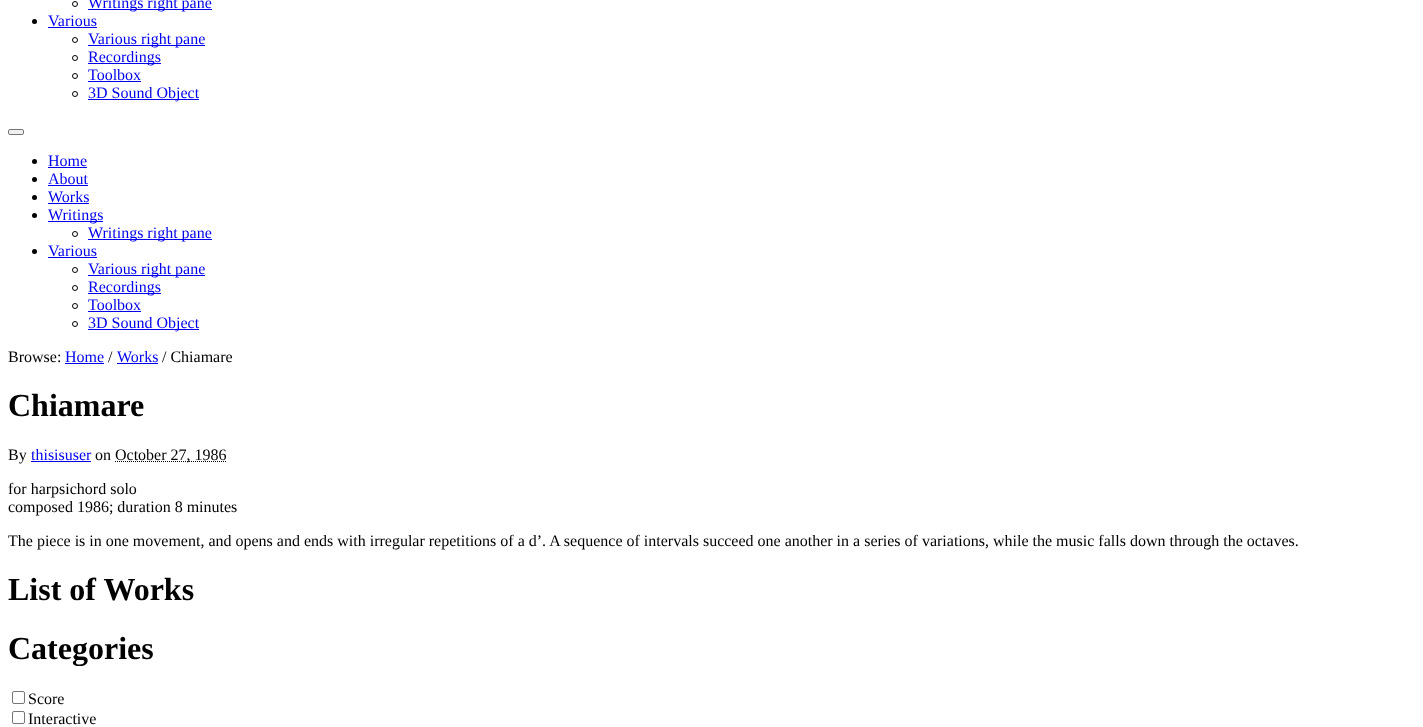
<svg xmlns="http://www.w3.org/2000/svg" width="1423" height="727">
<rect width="100%" height="100%" fill="#fff"/>
<circle cx="75" cy="4" r="2.5" fill="none" stroke="#000"/>
<rect x="88" y="9" width="124" height="1" fill="#00e"/>
<text x="88" y="8" style="font-family:Liberation Serif;font-size:16px;fill:#00e">Writings right pane</text>
<circle cx="34.5" cy="21.5" r="2.5" fill="#000"/>
<text x="48" y="26" style="font-family:Liberation Serif;font-size:16px;fill:#00e">Various</text>
<rect x="48" y="27" width="49" height="1" fill="#00e"/>
<circle cx="75" cy="40" r="2.5" fill="none" stroke="#000"/>
<rect x="88" y="45" width="117" height="1" fill="#00e"/>
<text x="88" y="44" style="font-family:Liberation Serif;font-size:16px;fill:#00e">Various right pane</text>
<circle cx="75" cy="58" r="2.5" fill="none" stroke="#000"/>
<rect x="88" y="63" width="73" height="1" fill="#00e"/>
<text x="88" y="62" style="font-family:Liberation Serif;font-size:16px;fill:#00e">Recordings</text>
<circle cx="75" cy="76" r="2.5" fill="none" stroke="#000"/>
<text x="88" y="80" style="font-family:Liberation Serif;font-size:16px;fill:#00e">Toolbox</text>
<rect x="88" y="81" width="53" height="1" fill="#00e"/>
<circle cx="75" cy="94" r="2.5" fill="none" stroke="#000"/>
<rect x="88" y="99" width="111" height="1" fill="#00e"/>
<text x="88" y="98" style="font-family:Liberation Serif;font-size:16px;fill:#00e">3D Sound Object</text>
<rect x="8.5" y="129.5" width="15" height="5" rx="1.5" fill="#efefef" stroke="#767676"/>
<circle cx="34.5" cy="161.5" r="2.5" fill="#000"/>
<text x="48" y="166" style="font-family:Liberation Serif;font-size:16px;fill:#00e">Home</text>
<rect x="48" y="167" width="39" height="1" fill="#00e"/>
<circle cx="34.5" cy="179.5" r="2.5" fill="#000"/>
<text x="48" y="184" style="font-family:Liberation Serif;font-size:16px;fill:#00e">About</text>
<rect x="48" y="185" width="40" height="1" fill="#00e"/>
<circle cx="34.5" cy="197.5" r="2.5" fill="#000"/>
<text x="48" y="202" style="font-family:Liberation Serif;font-size:16px;fill:#00e">Works</text>
<rect x="48" y="203" width="41" height="1" fill="#00e"/>
<circle cx="34.5" cy="215.5" r="2.5" fill="#000"/>
<rect x="48" y="221" width="55" height="1" fill="#00e"/>
<text x="48" y="220" style="font-family:Liberation Serif;font-size:16px;fill:#00e">Writings</text>
<circle cx="75" cy="234" r="2.5" fill="none" stroke="#000"/>
<rect x="88" y="239" width="124" height="1" fill="#00e"/>
<text x="88" y="238" style="font-family:Liberation Serif;font-size:16px;fill:#00e">Writings right pane</text>
<circle cx="34.5" cy="251.5" r="2.5" fill="#000"/>
<text x="48" y="256" style="font-family:Liberation Serif;font-size:16px;fill:#00e">Various</text>
<rect x="48" y="257" width="49" height="1" fill="#00e"/>
<circle cx="75" cy="270" r="2.5" fill="none" stroke="#000"/>
<rect x="88" y="275" width="117" height="1" fill="#00e"/>
<text x="88" y="274" style="font-family:Liberation Serif;font-size:16px;fill:#00e">Various right pane</text>
<circle cx="75" cy="288" r="2.5" fill="none" stroke="#000"/>
<rect x="88" y="293" width="73" height="1" fill="#00e"/>
<text x="88" y="292" style="font-family:Liberation Serif;font-size:16px;fill:#00e">Recordings</text>
<circle cx="75" cy="306" r="2.5" fill="none" stroke="#000"/>
<text x="88" y="310" style="font-family:Liberation Serif;font-size:16px;fill:#00e">Toolbox</text>
<rect x="88" y="311" width="53" height="1" fill="#00e"/>
<circle cx="75" cy="324" r="2.5" fill="none" stroke="#000"/>
<rect x="88" y="329" width="111" height="1" fill="#00e"/>
<text x="88" y="328" style="font-family:Liberation Serif;font-size:16px;fill:#00e">3D Sound Object</text>
<text x="8" y="362" style="font-family:Liberation Serif;font-size:16px;fill:#000">Browse:</text>
<text x="65" y="362" style="font-family:Liberation Serif;font-size:16px;fill:#00e">Home</text>
<rect x="65" y="363" width="39" height="1" fill="#00e"/>
<text x="108" y="362" style="font-family:Liberation Serif;font-size:16px;fill:#000">/</text>
<text x="117" y="362" style="font-family:Liberation Serif;font-size:16px;fill:#00e">Works</text>
<rect x="117" y="363" width="41" height="1" fill="#00e"/>
<text x="162" y="362" style="font-family:Liberation Serif;font-size:16px;fill:#000">/ Chiamare</text>
<text x="8" y="416" style="font-family:Liberation Serif;font-size:32px;font-weight:bold;fill:#000">Chiamare</text>
<text x="8" y="460" style="font-family:Liberation Serif;font-size:16px;fill:#000">By</text>
<text x="31" y="460" style="font-family:Liberation Serif;font-size:16px;fill:#00e">thisisuser</text>
<rect x="31" y="461" width="60" height="1" fill="#00e"/>
<text x="95" y="460" style="font-family:Liberation Serif;font-size:16px;fill:#000">on</text>
<path d="M115 461.5h111.5" fill="none" stroke="#000" stroke-dasharray="1 1"/>
<text x="115" y="460" style="font-family:Liberation Serif;font-size:16px;fill:#000">October 27, 1986</text>
<text x="8" y="494" style="font-family:Liberation Serif;font-size:16px;fill:#000">for harpsichord solo</text>
<text x="8" y="512" style="font-family:Liberation Serif;font-size:16px;fill:#000">composed 1986; duration 8 minutes</text>
<text x="8" y="546" style="font-family:Liberation Serif;font-size:16px;fill:#000">The piece is in one movement, and opens and ends with irregular repetitions of a d’. A sequence of intervals succeed one another in a series of variations, while the music falls down through the octaves.</text>
<text x="8" y="600" style="font-family:Liberation Serif;font-size:32px;font-weight:bold;fill:#000">List of Works</text>
<text x="8" y="659" style="font-family:Liberation Serif;font-size:32px;font-weight:bold;fill:#000">Categories</text>
<rect x="12.5" y="691.5" width="12" height="12" rx="1.5" fill="none" stroke="#767676"/>
<text x="28" y="704" style="font-family:Liberation Serif;font-size:16px;fill:#000">Score</text>
<rect x="12.5" y="711.5" width="12" height="12" rx="1.5" fill="none" stroke="#767676"/>
<text x="28" y="724" style="font-family:Liberation Serif;font-size:16px;fill:#000">Interactive</text>
</svg>
